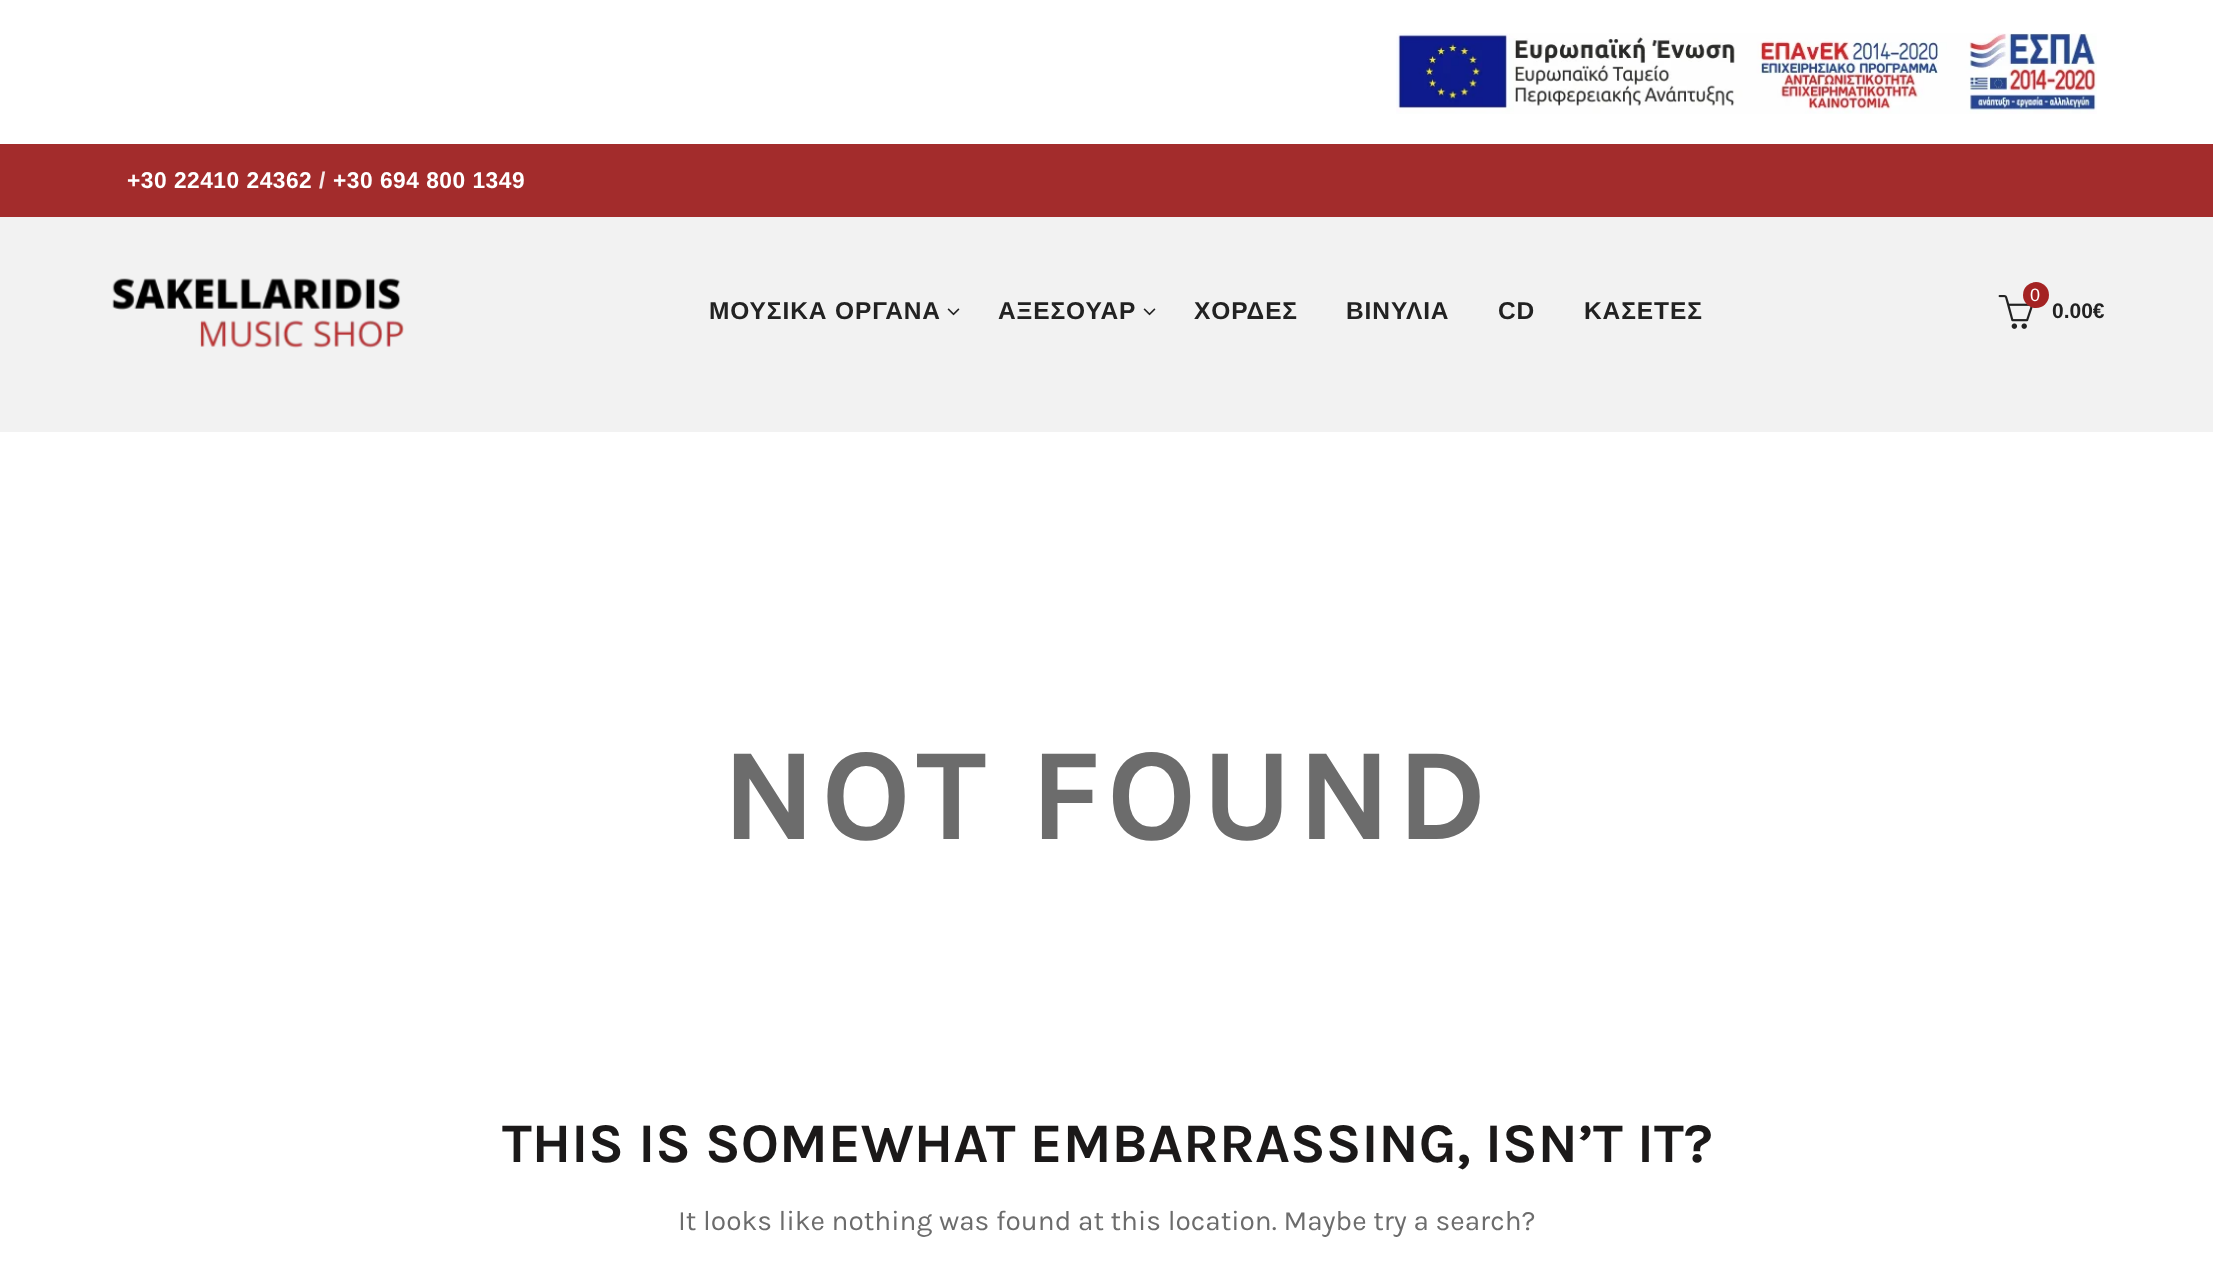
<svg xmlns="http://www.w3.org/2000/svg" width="2213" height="1261">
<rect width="100%" height="100%" fill="#fff"/>
<image x="1396" y="33" width="701" height="81" href="media/1.png"/>
<rect y="144" width="2213" height="73" fill="#a32c2c"/>
<text x="127" y="188" style="font-family:Liberation Sans;font-size:22.75px;font-weight:bold;letter-spacing:0.5px;fill:#fff">+30 22410 24362</text>
<text x="319" y="188" style="font-family:Liberation Sans;font-size:22.75px;font-weight:bold;letter-spacing:0.5px;fill:#f6eaea">/</text>
<text x="333" y="188" style="font-family:Liberation Sans;font-size:22.75px;font-weight:bold;letter-spacing:0.5px;fill:#fff">+30 694 800 1349</text>
<rect y="217" width="2213" height="215" fill="#f2f2f2"/>
<image x="112" y="278" width="292" height="70" href="media/2.png"/>
<text x="709" y="319" style="font-family:Liberation Sans;font-size:24.5px;font-weight:bold;letter-spacing:0.9px;fill:#222">ΜΟΥΣΙΚΑ ΟΡΓΑΝΑ</text>
<image x="947" y="308" width="13" height="8" href="media/3.png"/>
<text x="998" y="319" style="font-family:Liberation Sans;font-size:24.5px;font-weight:bold;letter-spacing:0.9px;fill:#222">ΑΞΕΣΟΥΑΡ</text>
<image x="1143" y="308" width="13" height="8" href="media/3.png"/>
<text x="1194" y="319" style="font-family:Liberation Sans;font-size:24.5px;font-weight:bold;letter-spacing:0.9px;fill:#222">ΧΟΡΔΕΣ</text>
<text x="1346" y="319" style="font-family:Liberation Sans;font-size:24.5px;font-weight:bold;letter-spacing:0.9px;fill:#222">ΒΙΝΥΛΙΑ</text>
<text x="1498" y="319" style="font-family:Liberation Sans;font-size:24.5px;font-weight:bold;letter-spacing:0.9px;fill:#222">CD</text>
<text x="1584" y="319" style="font-family:Liberation Sans;font-size:24.5px;font-weight:bold;letter-spacing:0.9px;fill:#222">ΚΑΣΕΤΕΣ</text>
<image x="1998" y="295" width="35" height="34" href="media/4.png"/>
<circle cx="2036" cy="295" r="13" fill="#a42323"/>
<text x="2030" y="301" style="font-family:Liberation Sans;font-size:18px;fill:#fff">0</text>
<text x="2052" y="318" style="font-family:Liberation Sans;font-size:21px;font-weight:bold;fill:#222">0.00€</text>
<text x="722" y="839" style="font-family:Karla;font-size:131.25px;font-weight:bold;letter-spacing:5.25px;fill:#6c6c6c">NOT FOUND</text>
<text x="502" y="1162" style="font-family:Karla;font-size:56px;font-weight:bold;fill:#1b1919">THIS IS SOMEWHAT EMBARRASSING, ISN’T IT?</text>
<text x="678" y="1230" style="font-family:Karla;font-size:28px;fill:#6c6c6c">It looks like nothing was found at this location. Maybe try a search?</text>
</svg>
